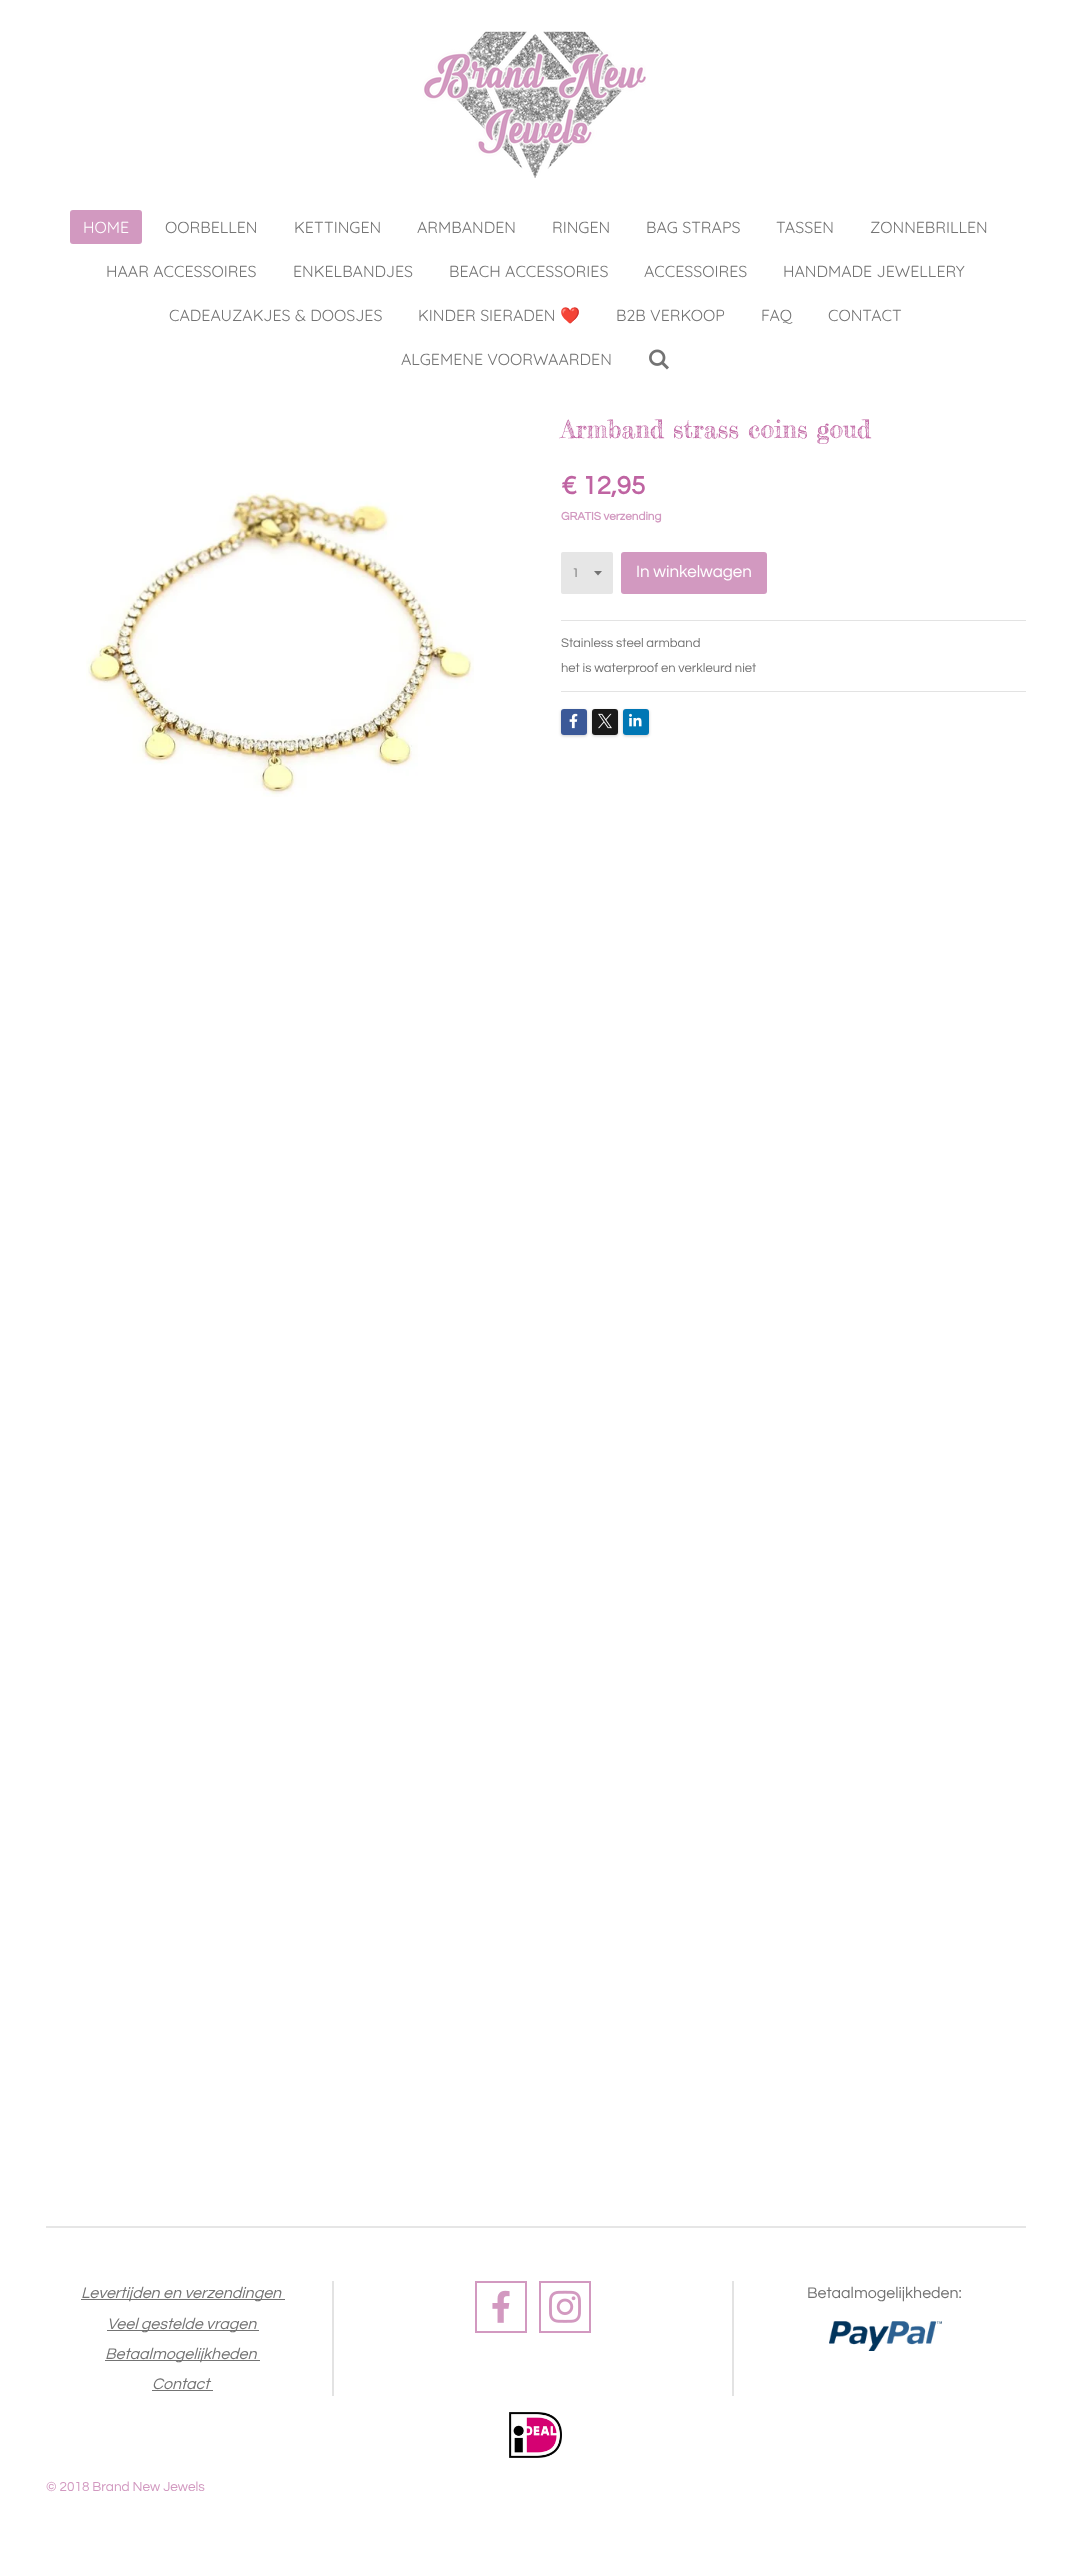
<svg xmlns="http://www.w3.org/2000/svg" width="1071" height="2551">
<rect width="100%" height="100%" fill="#fff"/>
<image x="423" y="31" width="223" height="147" href="media/1.png"/>
<rect x="70" y="210" width="72" height="34" rx="3" fill="#d299c0"/>
<text x="83" y="233" style="font-family:Quicksand;font-size:16px;fill:#fff">HOME</text>
<text x="165" y="233" style="font-family:Quicksand;font-size:16px;fill:#737373">OORBELLEN</text>
<text x="294" y="233" style="font-family:Quicksand;font-size:16px;fill:#737373">KETTINGEN</text>
<text x="417" y="233" style="font-family:Quicksand;font-size:16px;fill:#737373">ARMBANDEN</text>
<text x="552" y="233" style="font-family:Quicksand;font-size:16px;fill:#737373">RINGEN</text>
<text x="646" y="233" style="font-family:Quicksand;font-size:16px;fill:#737373">BAG STRAPS</text>
<text x="776" y="233" style="font-family:Quicksand;font-size:16px;fill:#737373">TASSEN</text>
<text x="870" y="233" style="font-family:Quicksand;font-size:16px;fill:#737373">ZONNEBRILLEN</text>
<text x="106" y="277" style="font-family:Quicksand;font-size:16px;fill:#737373">HAAR ACCESSOIRES</text>
<text x="293" y="277" style="font-family:Quicksand;font-size:16px;fill:#737373">ENKELBANDJES</text>
<text x="449" y="277" style="font-family:Quicksand;font-size:16px;fill:#737373">BEACH ACCESSORIES</text>
<text x="644" y="277" style="font-family:Quicksand;font-size:16px;fill:#737373">ACCESSOIRES</text>
<text x="783" y="277" style="font-family:Quicksand;font-size:16px;fill:#737373">HANDMADE JEWELLERY</text>
<text x="169" y="321" style="font-family:Quicksand;font-size:16px;fill:#737373">CADEAUZAKJES &amp; DOOSJES</text>
<text x="418" y="321" style="font-family:Quicksand;font-size:16px;fill:#737373">KINDER SIERADEN</text>
<text x="560" y="321" style="font-family:Noto Color Emoji;font-size:16px;fill:#737373">❤️</text>
<text x="616" y="321" style="font-family:Quicksand;font-size:16px;fill:#737373">B2B VERKOOP</text>
<text x="761" y="321" style="font-family:Quicksand;font-size:16px;fill:#737373">FAQ</text>
<text x="828" y="321" style="font-family:Quicksand;font-size:16px;fill:#737373">CONTACT</text>
<text x="401" y="365" style="font-family:Quicksand;font-size:16px;fill:#737373">ALGEMENE VOORWAARDEN</text>
<image x="649" y="349" width="20" height="21" href="media/2.png"/>
<text x="561" y="438" style="font-family:Fredericka the Great;font-size:25px;fill:#bf64a2">Armband strass coins goud</text>
<image x="86" y="490" width="388" height="307" href="media/3.png"/>
<text x="561" y="494" style="font-family:Questrial;font-size:26px;font-weight:bold;fill:#bf64a2">€ 12,95</text>
<text x="561" y="520" style="font-family:Questrial;font-size:11.75px;font-weight:bold;fill:#d299c0">GRATIS verzending</text>
<rect x="561" y="552" width="52" height="42" rx="2" fill="#e6e6e6"/>
<path d="M598 575.5l-4-4.5h8z" fill="#737373"/>
<text x="572" y="577" style="font-family:Questrial;font-size:13px;fill:#737373">1</text>
<rect x="621" y="552" width="146" height="42" rx="3" fill="#d299c0"/>
<text x="636" y="577" style="font-family:Questrial;font-size:17px;fill:#fff">In winkelwagen</text>
<rect x="561" y="620" width="465" height="1" fill="#e3e3e3"/>
<text x="561" y="647" style="font-family:Questrial;font-size:13px;fill:#737373">Stainless steel armband</text>
<text x="561" y="672" style="font-family:Questrial;font-size:13px;fill:#737373">het is waterproof en verkleurd niet</text>
<rect x="561" y="691" width="465" height="1" fill="#e3e3e3"/>
<rect x="561" y="710" width="26" height="26" rx="3" fill="#00000033" filter="blur(1.5px)"/>
<rect x="561" y="709" width="26" height="26" rx="3" fill="#3b5998"/>
<image x="569" y="713" width="9" height="16" href="media/4.png"/>
<rect x="592" y="710" width="26" height="26" rx="3" fill="#00000033" filter="blur(1.5px)"/>
<rect x="592" y="709" width="26" height="26" rx="3" fill="#1a1a1a"/>
<image x="598" y="713" width="14" height="16" href="media/5.png"/>
<rect x="623" y="710" width="26" height="26" rx="3" fill="#00000033" filter="blur(1.5px)"/>
<rect x="623" y="709" width="26" height="26" rx="3" fill="#0077b5"/>
<image x="629" y="713" width="13" height="14" href="media/6.png"/>
<rect x="46" y="2226" width="980" height="2" fill="#e6e6e6"/>
<rect x="332" y="2281" width="2" height="115" fill="#e3e3e3"/>
<rect x="81" y="2299" width="204" height="1" fill="#737373"/>
<text x="81" y="2298" style="font-family:Questrial;font-size:16px;font-style:italic;fill:#737373">Levertijden en verzendingen</text>
<rect x="107" y="2330" width="152" height="1" fill="#737373"/>
<text x="107" y="2329" style="font-family:Questrial;font-size:16px;font-style:italic;fill:#737373">Veel gestelde vragen</text>
<rect x="105" y="2360" width="155" height="1" fill="#737373"/>
<text x="105" y="2359" style="font-family:Questrial;font-size:16px;font-style:italic;fill:#737373">Betaalmogelijkheden</text>
<text x="152" y="2389" style="font-family:Questrial;font-size:16px;font-style:italic;fill:#737373">Contact</text>
<rect x="152" y="2390" width="61" height="1" fill="#737373"/>
<rect x="732" y="2281" width="2" height="115" fill="#e3e3e3"/>
<rect x="476" y="2282" width="50" height="50" fill="none" stroke="#d299c0" stroke-width="2"/>
<image x="492" y="2290" width="18" height="33" href="media/7.png"/>
<rect x="540" y="2282" width="50" height="50" fill="none" stroke="#d299c0" stroke-width="2"/>
<image x="549" y="2290" width="32" height="33" href="media/8.png"/>
<text x="807" y="2298" style="font-family:Questrial;font-size:16px;fill:#737373">Betaalmogelijkheden:</text>
<image x="829" y="2321" width="113" height="30" href="media/9.png"/>
<image x="509" y="2412" width="53" height="46" href="media/10.png"/>
<text x="46" y="2491" style="font-family:Questrial;font-size:13.6px;fill:#d299c0">© 2018 Brand New Jewels</text>
</svg>
